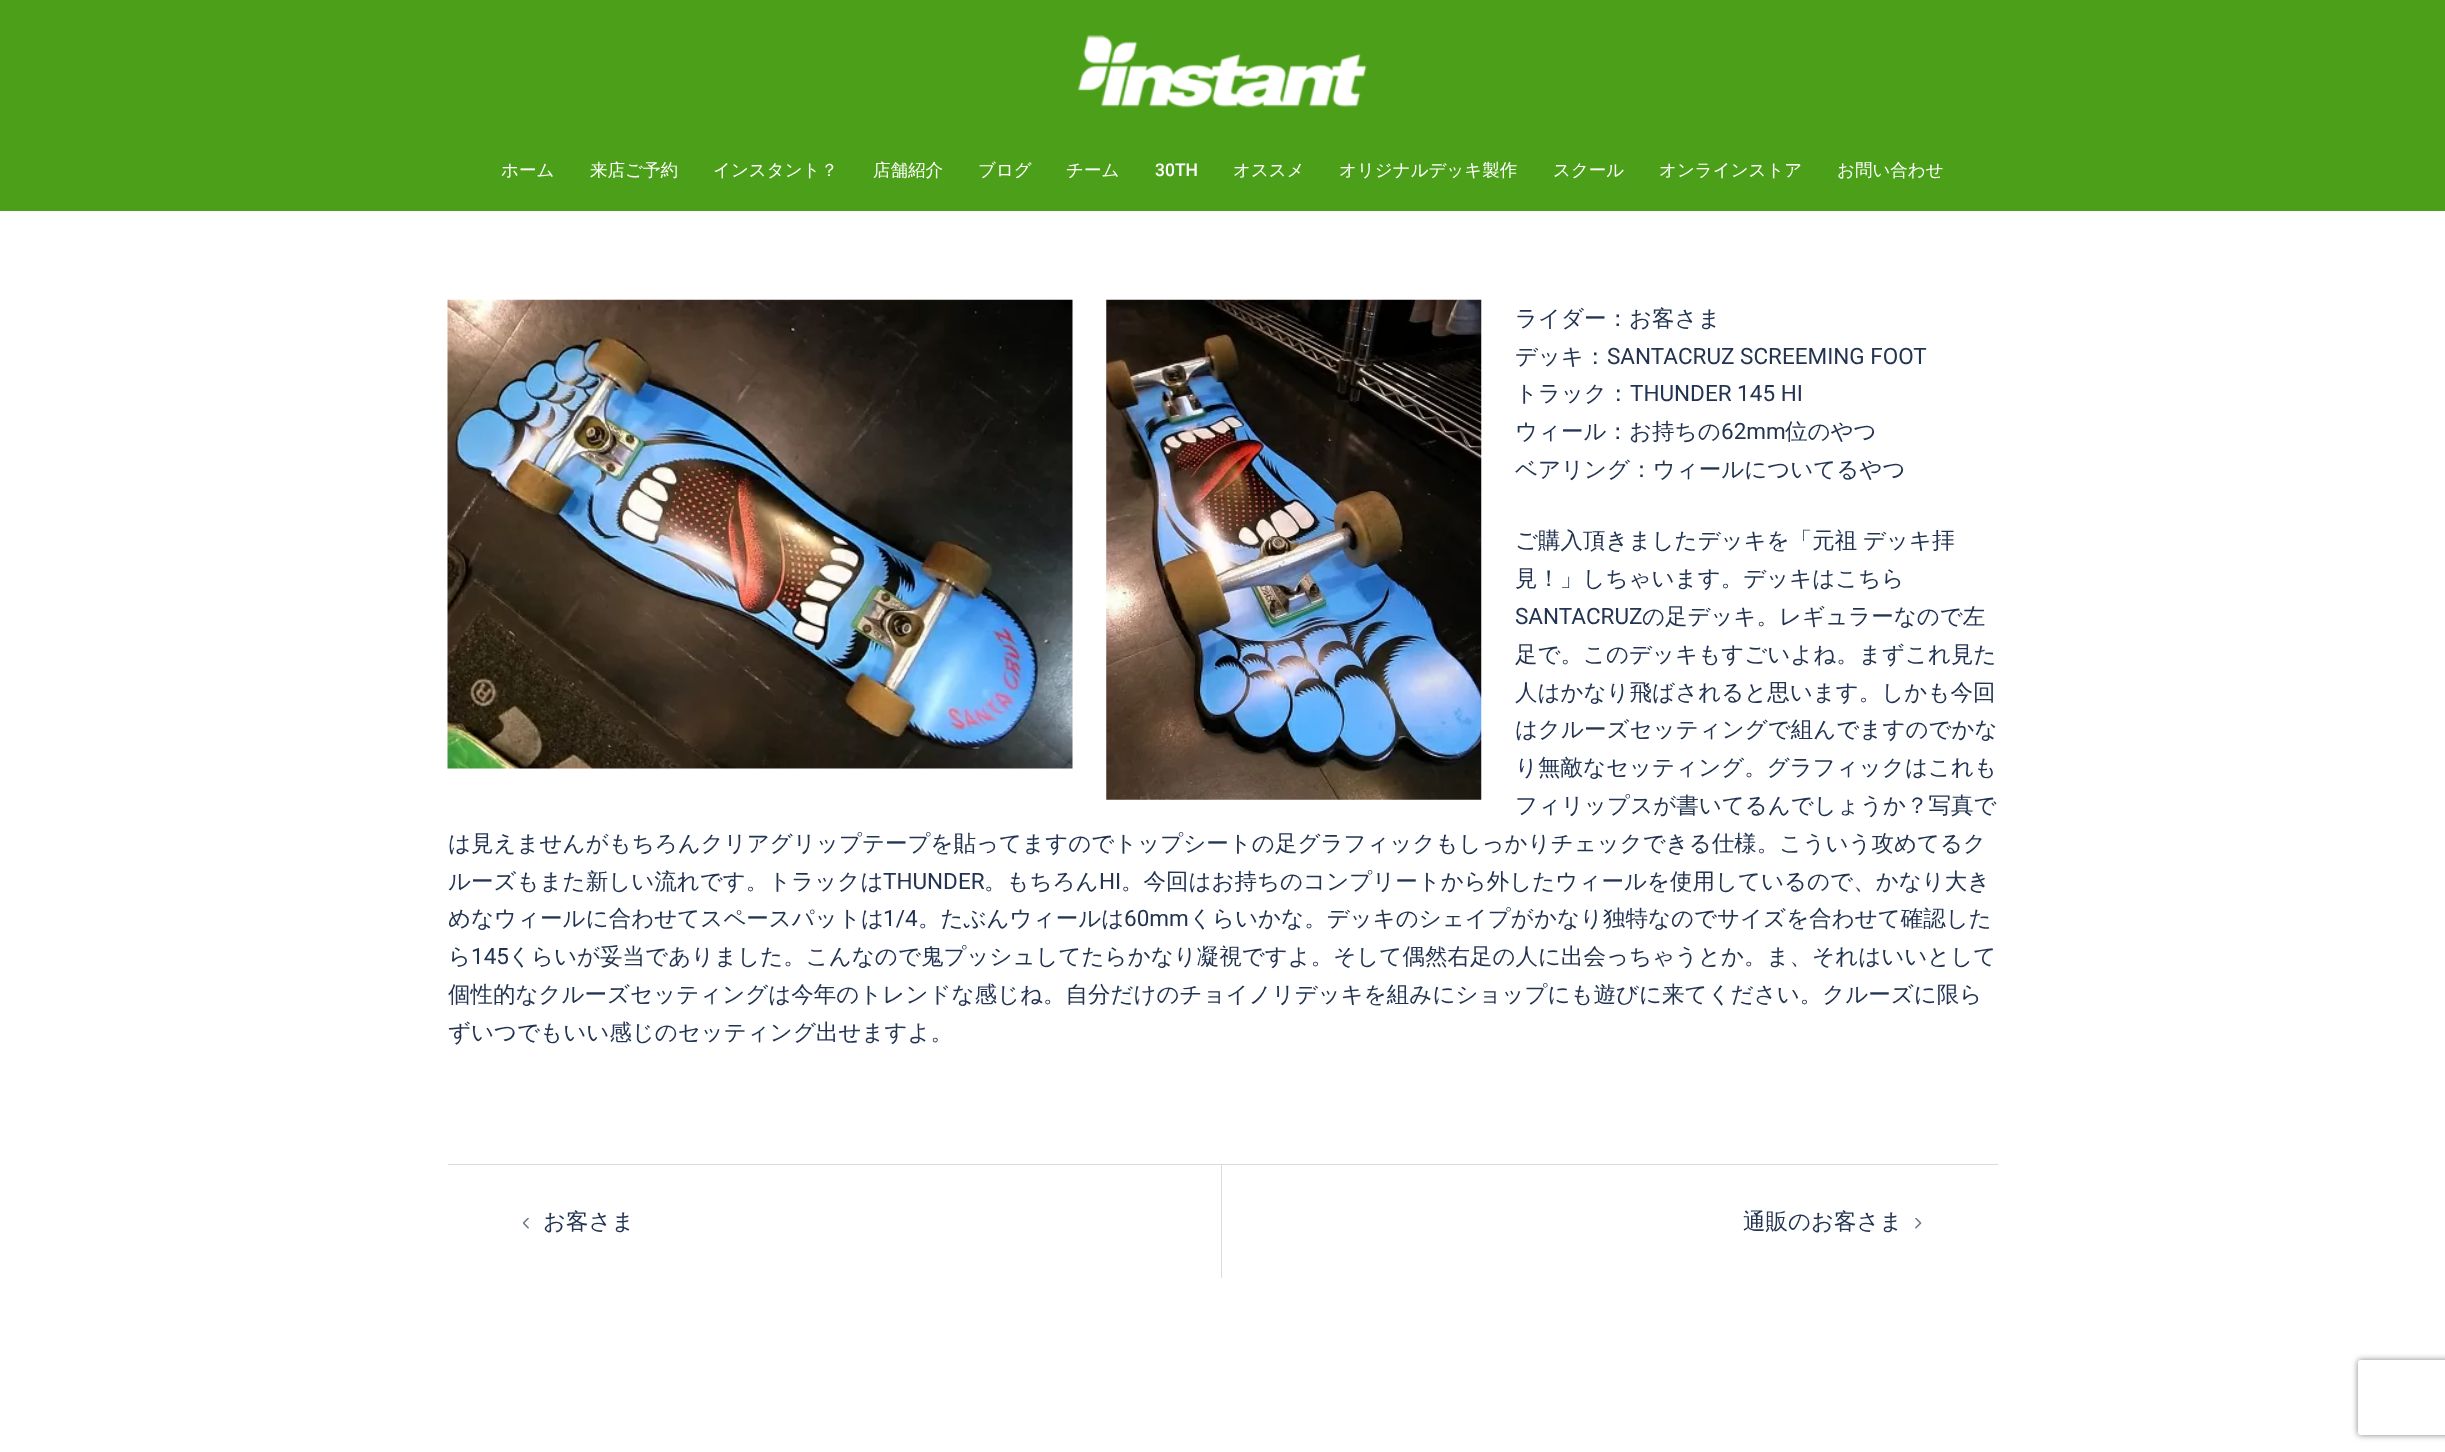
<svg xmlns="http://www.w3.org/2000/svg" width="2445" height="1452">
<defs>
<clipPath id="clip1"><path d="M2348 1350h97v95h-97zm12.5 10h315c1.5 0 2.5 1 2.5 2.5v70c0 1.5-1 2.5-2.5 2.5h-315c-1.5 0-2.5-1-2.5-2.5v-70c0-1.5 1-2.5 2.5-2.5z" clip-rule="evenodd"/></clipPath>
</defs>
<rect width="100%" height="100%" fill="#fff"/>
<rect width="2445" height="211" fill="#399600e6"/>
<image x="1077" y="35" width="290" height="73" href="media/1.png"/>
<text x="501" y="176" style="font-family:WenQuanYi Zen Hei;font-size:17.5px;font-weight:500;fill:#fff">ホーム</text>
<text x="590" y="176" style="font-family:WenQuanYi Zen Hei;font-size:17.5px;font-weight:500;fill:#fff">来店ご予約</text>
<text x="713" y="176" style="font-family:WenQuanYi Zen Hei;font-size:17.5px;font-weight:500;fill:#fff">インスタント？</text>
<text x="873" y="176" style="font-family:WenQuanYi Zen Hei;font-size:17.5px;font-weight:500;fill:#fff">店舗紹介</text>
<text x="978" y="176" style="font-family:WenQuanYi Zen Hei;font-size:17.5px;font-weight:500;fill:#fff">ブログ</text>
<text x="1066" y="176" style="font-family:WenQuanYi Zen Hei;font-size:17.5px;font-weight:500;fill:#fff">チーム</text>
<text x="1155" y="176" style="font-family:Roboto;font-size:17.5px;font-weight:500;fill:#fff">30TH</text>
<text x="1233" y="176" style="font-family:WenQuanYi Zen Hei;font-size:17.5px;font-weight:500;fill:#fff">オススメ</text>
<text x="1339" y="176" style="font-family:WenQuanYi Zen Hei;font-size:17.5px;font-weight:500;fill:#fff">オリジナルデッキ製作</text>
<text x="1553" y="176" style="font-family:WenQuanYi Zen Hei;font-size:17.5px;font-weight:500;fill:#fff">スクール</text>
<text x="1659" y="176" style="font-family:WenQuanYi Zen Hei;font-size:17.5px;font-weight:500;fill:#fff">オンラインストア</text>
<text x="1837" y="176" style="font-family:WenQuanYi Zen Hei;font-size:17.5px;font-weight:500;fill:#fff">お問い合わせ</text>
<image x="447" y="299" width="626" height="470" href="media/2.png"/>
<image x="1106" y="299" width="376" height="501" href="media/3.png"/>
<text x="1515" y="326" style="font-family:WenQuanYi Zen Hei;font-size:22.5px;font-weight:500;fill:#233452">ライダー：お客さま</text>
<text x="1515" y="364" style="font-family:WenQuanYi Zen Hei;font-size:22.5px;font-weight:500;fill:#233452">デッキ：</text>
<text x="1607" y="364" style="font-family:Roboto;font-size:22.5px;fill:#233452">SANTACRUZ SCREEMING FOOT</text>
<text x="1515" y="401" style="font-family:WenQuanYi Zen Hei;font-size:22.5px;font-weight:500;fill:#233452">トラック：</text>
<text x="1630" y="401" style="font-family:Roboto;font-size:22.5px;fill:#233452">THUNDER 145 HI</text>
<text x="1515" y="439" style="font-family:WenQuanYi Zen Hei;font-size:22.5px;font-weight:500;fill:#233452">ウィール：お持ちの</text>
<text x="1721" y="439" style="font-family:Roboto;font-size:22.5px;fill:#233452">62mm</text>
<text x="1785" y="439" style="font-family:WenQuanYi Zen Hei;font-size:22.5px;font-weight:500;fill:#233452">位のやつ</text>
<text x="1515" y="477" style="font-family:WenQuanYi Zen Hei;font-size:22.5px;font-weight:500;fill:#233452">ベアリング：ウィールについてるやつ</text>
<text x="1515" y="548" word-spacing="-1" style="font-family:WenQuanYi Zen Hei;font-size:22.5px;font-weight:500;fill:#233452">ご購入頂きましたデッキを「元祖 デッキ拝</text>
<text x="1515" y="586" style="font-family:WenQuanYi Zen Hei;font-size:22.5px;font-weight:500;fill:#233452">見！」しちゃいます。デッキはこちら</text>
<text x="1515" y="624" style="font-family:Roboto;font-size:22.5px;fill:#233452">SANTACRUZ</text>
<text x="1642" y="624" style="font-family:WenQuanYi Zen Hei;font-size:22.5px;font-weight:500;fill:#233452">の足デッキ。レギュラーなので左</text>
<text x="1515" y="662" style="font-family:WenQuanYi Zen Hei;font-size:22.5px;font-weight:500;fill:#233452">足で。このデッキもすごいよね。まずこれ見た</text>
<text x="1515" y="700" style="font-family:WenQuanYi Zen Hei;font-size:22.5px;font-weight:500;fill:#233452">人はかなり飛ばされると思います。しかも今回</text>
<text x="1515" y="737" style="font-family:WenQuanYi Zen Hei;font-size:22.5px;font-weight:500;fill:#233452">はクルーズセッティングで組んでますのでかな</text>
<text x="1515" y="775" style="font-family:WenQuanYi Zen Hei;font-size:22.5px;font-weight:500;fill:#233452">り無敵なセッティング。グラフィックはこれも</text>
<text x="1515" y="813" style="font-family:WenQuanYi Zen Hei;font-size:22.5px;font-weight:500;fill:#233452">フィリップスが書いてるんでしょうか？写真で</text>
<text x="448" y="851" style="font-family:WenQuanYi Zen Hei;font-size:22.5px;font-weight:500;fill:#233452">は見えませんがもちろんクリアグリップテープを貼ってますのでトップシートの足グラフィックもしっかりチェックできる仕様。こういう攻めてるク</text>
<text x="448" y="889" style="font-family:WenQuanYi Zen Hei;font-size:22.5px;font-weight:500;fill:#233452">ルーズもまた新しい流れです。トラックは</text>
<text x="883" y="889" style="font-family:Roboto;font-size:22.5px;fill:#233452">THUNDER</text>
<text x="984" y="889" style="font-family:WenQuanYi Zen Hei;font-size:22.5px;font-weight:500;fill:#233452">。もちろん</text>
<text x="1099" y="889" style="font-family:Roboto;font-size:22.5px;fill:#233452">HI</text>
<text x="1121" y="889" style="font-family:WenQuanYi Zen Hei;font-size:22.5px;font-weight:500;fill:#233452">。今回はお持ちのコンプリートから外したウィールを使用しているので、かなり大き</text>
<text x="448" y="926" style="font-family:WenQuanYi Zen Hei;font-size:22.5px;font-weight:500;fill:#233452">めなウィールに合わせてスペースパットは</text>
<text x="883" y="926" style="font-family:Roboto;font-size:22.5px;fill:#233452">1/4</text>
<text x="918" y="926" style="font-family:WenQuanYi Zen Hei;font-size:22.5px;font-weight:500;fill:#233452">。たぶんウィールは</text>
<text x="1124" y="926" style="font-family:Roboto;font-size:22.5px;fill:#233452">60mm</text>
<text x="1189" y="926" style="font-family:WenQuanYi Zen Hei;font-size:22.5px;font-weight:500;fill:#233452">くらいかな。デッキのシェイプがかなり独特なのでサイズを合わせて確認した</text>
<text x="448" y="964" style="font-family:WenQuanYi Zen Hei;font-size:22.5px;font-weight:500;fill:#233452">ら</text>
<text x="471" y="964" style="font-family:Roboto;font-size:22.5px;fill:#233452">145</text>
<text x="508" y="964" style="font-family:WenQuanYi Zen Hei;font-size:22.5px;font-weight:500;fill:#233452">くらいが妥当でありました。こんなので鬼プッシュしてたらかなり凝視ですよ。そして偶然右足の人に出会っちゃうとか。ま、それはいいとして</text>
<text x="448" y="1002" style="font-family:WenQuanYi Zen Hei;font-size:22.5px;font-weight:500;fill:#233452">個性的なクルーズセッティングは今年のトレンドな感じね。自分だけのチョイノリデッキを組みにショップにも遊びに来てください。クルーズに限ら</text>
<text x="448" y="1040" style="font-family:WenQuanYi Zen Hei;font-size:22.5px;font-weight:500;fill:#233452">ずいつでもいい感じのセッティング出せますよ。</text>
<rect x="448" y="1164" width="1550" height="1" fill="#dbdbdb"/>
<rect x="1221" y="1165" width="1" height="113" fill="#dbdbdb"/>
<image x="523" y="1218" width="6" height="11" href="media/4.png"/>
<text x="543" y="1229" style="font-family:WenQuanYi Zen Hei;font-size:22.5px;font-weight:500;fill:#233452">お客さま</text>
<text x="1743" y="1229" style="font-family:WenQuanYi Zen Hei;font-size:22.5px;font-weight:500;fill:#233452">通販のお客さま</text>
<image x="1915" y="1218" width="7" height="11" href="media/5.png"/>
<g clip-path="url(#clip1)">
<rect x="2358" y="1360" width="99" height="75" rx="2.5" fill="#808080" filter="blur(3px)"/>
</g>
</svg>
